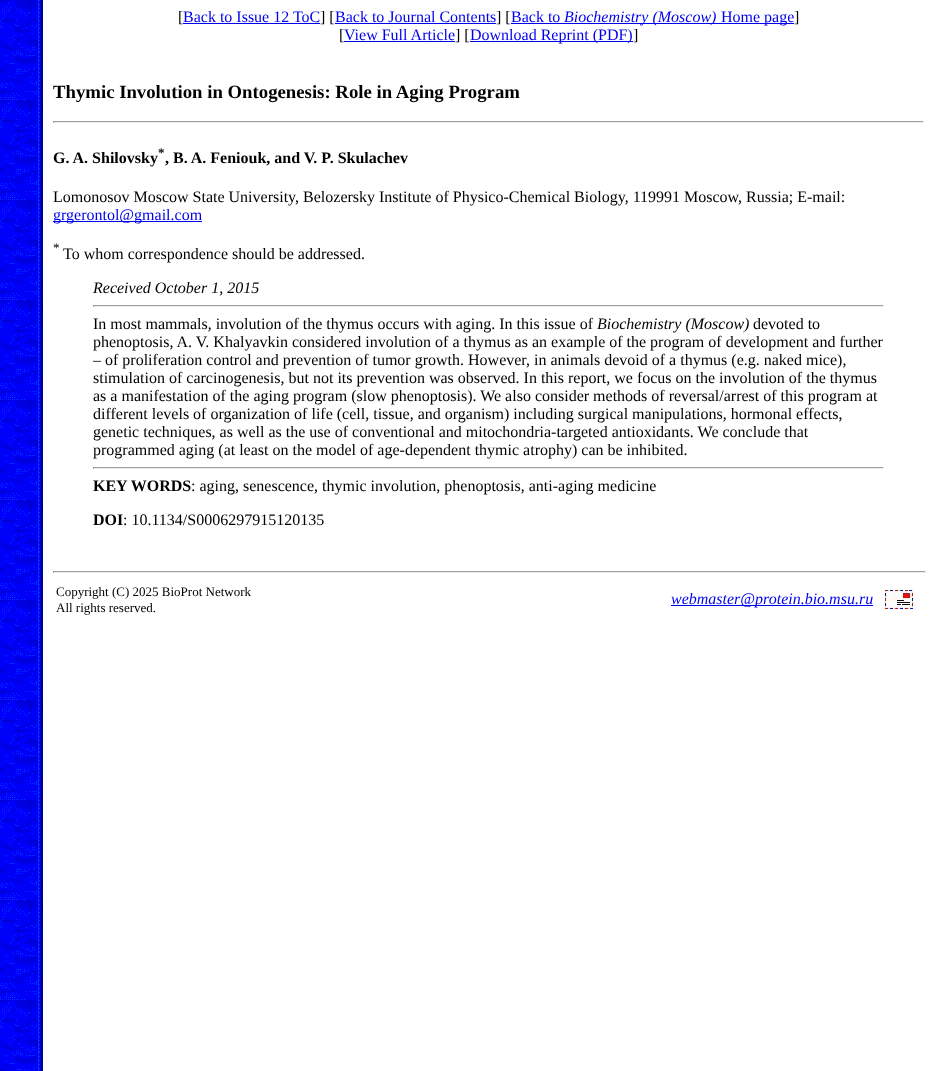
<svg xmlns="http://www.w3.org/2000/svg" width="932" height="1071">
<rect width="100%" height="100%" fill="#fff"/>
<image x="0" y="0" width="43" height="1071" href="media/1.png"/>
<text x="178" y="22" style="font-family:Liberation Serif;font-size:16px;fill:#000">[</text>
<text x="183" y="22" style="font-family:Liberation Serif;font-size:16px;fill:#00e">Back to Issue 12 ToC</text>
<rect x="183" y="23" width="137" height="1" fill="#00e"/>
<text x="320" y="22" style="font-family:Liberation Serif;font-size:16px;fill:#000">] [</text>
<text x="335" y="22" style="font-family:Liberation Serif;font-size:16px;fill:#00e">Back to Journal Contents</text>
<rect x="335" y="23" width="161" height="1" fill="#00e"/>
<text x="496" y="22" style="font-family:Liberation Serif;font-size:16px;fill:#000">] [</text>
<text x="511" y="22" style="font-family:Liberation Serif;font-size:16px;fill:#00e">Back to</text>
<rect x="511" y="23" width="283" height="1" fill="#00e"/>
<text x="564" y="22" style="font-family:Liberation Serif;font-size:16px;font-style:italic;fill:#00e">Biochemistry (Moscow)</text>
<text x="721" y="22" style="font-family:Liberation Serif;font-size:16px;fill:#00e">Home page</text>
<text x="794" y="22" style="font-family:Liberation Serif;font-size:16px;fill:#000">]</text>
<text x="339" y="40" style="font-family:Liberation Serif;font-size:16px;fill:#000">[</text>
<text x="344" y="40" style="font-family:Liberation Serif;font-size:16px;fill:#00e">View Full Article</text>
<rect x="344" y="41" width="111" height="1" fill="#00e"/>
<text x="455" y="40" style="font-family:Liberation Serif;font-size:16px;fill:#000">] [</text>
<rect x="470" y="41" width="163" height="1" fill="#00e"/>
<text x="470" y="40" style="font-family:Liberation Serif;font-size:16px;fill:#00e">Download Reprint (PDF)</text>
<text x="633" y="40" style="font-family:Liberation Serif;font-size:16px;fill:#000">]</text>
<text x="53" y="98" style="font-family:Liberation Serif;font-size:18.75px;font-weight:bold;fill:#000">Thymic Involution in Ontogenesis: Role in Aging Program</text>
<rect x="53" y="121" width="871" height="1" fill="#9f9f9f"/>
<rect x="923" y="121" width="1" height="2" fill="#eee"/>
<rect x="53" y="122" width="871" height="1" fill="#eee"/>
<rect x="53" y="121" width="1" height="2" fill="#9f9f9f"/>
<text x="53" y="163" style="font-family:Liberation Serif;font-size:16px;font-weight:bold;fill:#000">G. A. Shilovsky</text>
<text x="158" y="157" style="font-family:Liberation Serif;font-size:13px;font-weight:bold;fill:#000">*</text>
<text x="165" y="163" style="font-family:Liberation Serif;font-size:16px;font-weight:bold;fill:#000">, B. A. Feniouk, and V. P. Skulachev</text>
<text x="53" y="202" style="font-family:Liberation Serif;font-size:16px;fill:#000">Lomonosov Moscow State University, Belozersky Institute of Physico-Chemical Biology, 119991 Moscow, Russia; E-mail:</text>
<rect x="53" y="221" width="149" height="1" fill="#00e"/>
<text x="53" y="220" style="font-family:Liberation Serif;font-size:16px;fill:#00e">grgerontol@gmail.com</text>
<text x="53" y="252" style="font-family:Liberation Serif;font-size:13px;fill:#000">*</text>
<text x="63" y="259" style="font-family:Liberation Serif;font-size:16px;fill:#000">To whom correspondence should be addressed.</text>
<text x="93" y="293" style="font-family:Liberation Serif;font-size:16px;font-style:italic;fill:#000">Received October 1, 2015</text>
<rect x="93" y="305" width="791" height="1" fill="#9f9f9f"/>
<rect x="883" y="305" width="1" height="2" fill="#eee"/>
<rect x="93" y="306" width="791" height="1" fill="#eee"/>
<rect x="93" y="305" width="1" height="2" fill="#9f9f9f"/>
<text x="93" y="329" style="font-family:Liberation Serif;font-size:16px;fill:#000">In most mammals, involution of the thymus occurs with aging. In this issue of</text>
<text x="597" y="329" style="font-family:Liberation Serif;font-size:16px;font-style:italic;fill:#000">Biochemistry (Moscow)</text>
<text x="753" y="329" style="font-family:Liberation Serif;font-size:16px;fill:#000">devoted to</text>
<text x="93" y="347" style="font-family:Liberation Serif;font-size:16px;fill:#000">phenoptosis, A. V. Khalyavkin considered involution of a thymus as an example of the program of development and further</text>
<text x="93" y="365" style="font-family:Liberation Serif;font-size:16px;fill:#000">– of proliferation control and prevention of tumor growth. However, in animals devoid of a thymus (e.g. naked mice),</text>
<text x="93" y="383" style="font-family:Liberation Serif;font-size:16px;fill:#000">stimulation of carcinogenesis, but not its prevention was observed. In this report, we focus on the involution of the thymus</text>
<text x="93" y="401" style="font-family:Liberation Serif;font-size:16px;fill:#000">as a manifestation of the aging program (slow phenoptosis). We also consider methods of reversal/arrest of this program at</text>
<text x="93" y="419" style="font-family:Liberation Serif;font-size:16px;fill:#000">different levels of organization of life (cell, tissue, and organism) including surgical manipulations, hormonal effects,</text>
<text x="93" y="437" style="font-family:Liberation Serif;font-size:16px;fill:#000">genetic techniques, as well as the use of conventional and mitochondria-targeted antioxidants. We conclude that</text>
<text x="93" y="455" style="font-family:Liberation Serif;font-size:16px;fill:#000">programmed aging (at least on the model of age-dependent thymic atrophy) can be inhibited.</text>
<rect x="93" y="467" width="791" height="1" fill="#9f9f9f"/>
<rect x="883" y="467" width="1" height="2" fill="#eee"/>
<rect x="93" y="468" width="791" height="1" fill="#eee"/>
<rect x="93" y="467" width="1" height="2" fill="#9f9f9f"/>
<text x="93" y="491" style="font-family:Liberation Serif;font-size:16px;font-weight:bold;fill:#000">KEY WORDS</text>
<text x="191" y="491" style="font-family:Liberation Serif;font-size:16px;fill:#000">: aging, senescence, thymic involution, phenoptosis, anti-aging medicine</text>
<text x="93" y="525" style="font-family:Liberation Serif;font-size:16px;font-weight:bold;fill:#000">DOI</text>
<text x="123" y="525" style="font-family:Liberation Serif;font-size:16px;fill:#000">: 10.1134/S0006297915120135</text>
<rect x="53" y="571" width="873" height="1" fill="#9f9f9f"/>
<rect x="925" y="571" width="1" height="2" fill="#eee"/>
<rect x="53" y="572" width="873" height="1" fill="#eee"/>
<rect x="53" y="571" width="1" height="2" fill="#9f9f9f"/>
<text x="56" y="596" style="font-family:Liberation Serif;font-size:13px;fill:#000">Copyright (C) 2025 BioProt Network</text>
<text x="56" y="612" style="font-family:Liberation Serif;font-size:13px;fill:#000">All rights reserved.</text>
<rect x="671" y="605" width="202" height="1" fill="#00e"/>
<text x="671" y="604" style="font-family:Liberation Serif;font-size:16px;font-style:italic;fill:#00e">webmaster@protein.bio.msu.ru</text>
<image x="885" y="590" width="28" height="19" href="media/2.png"/>
</svg>
